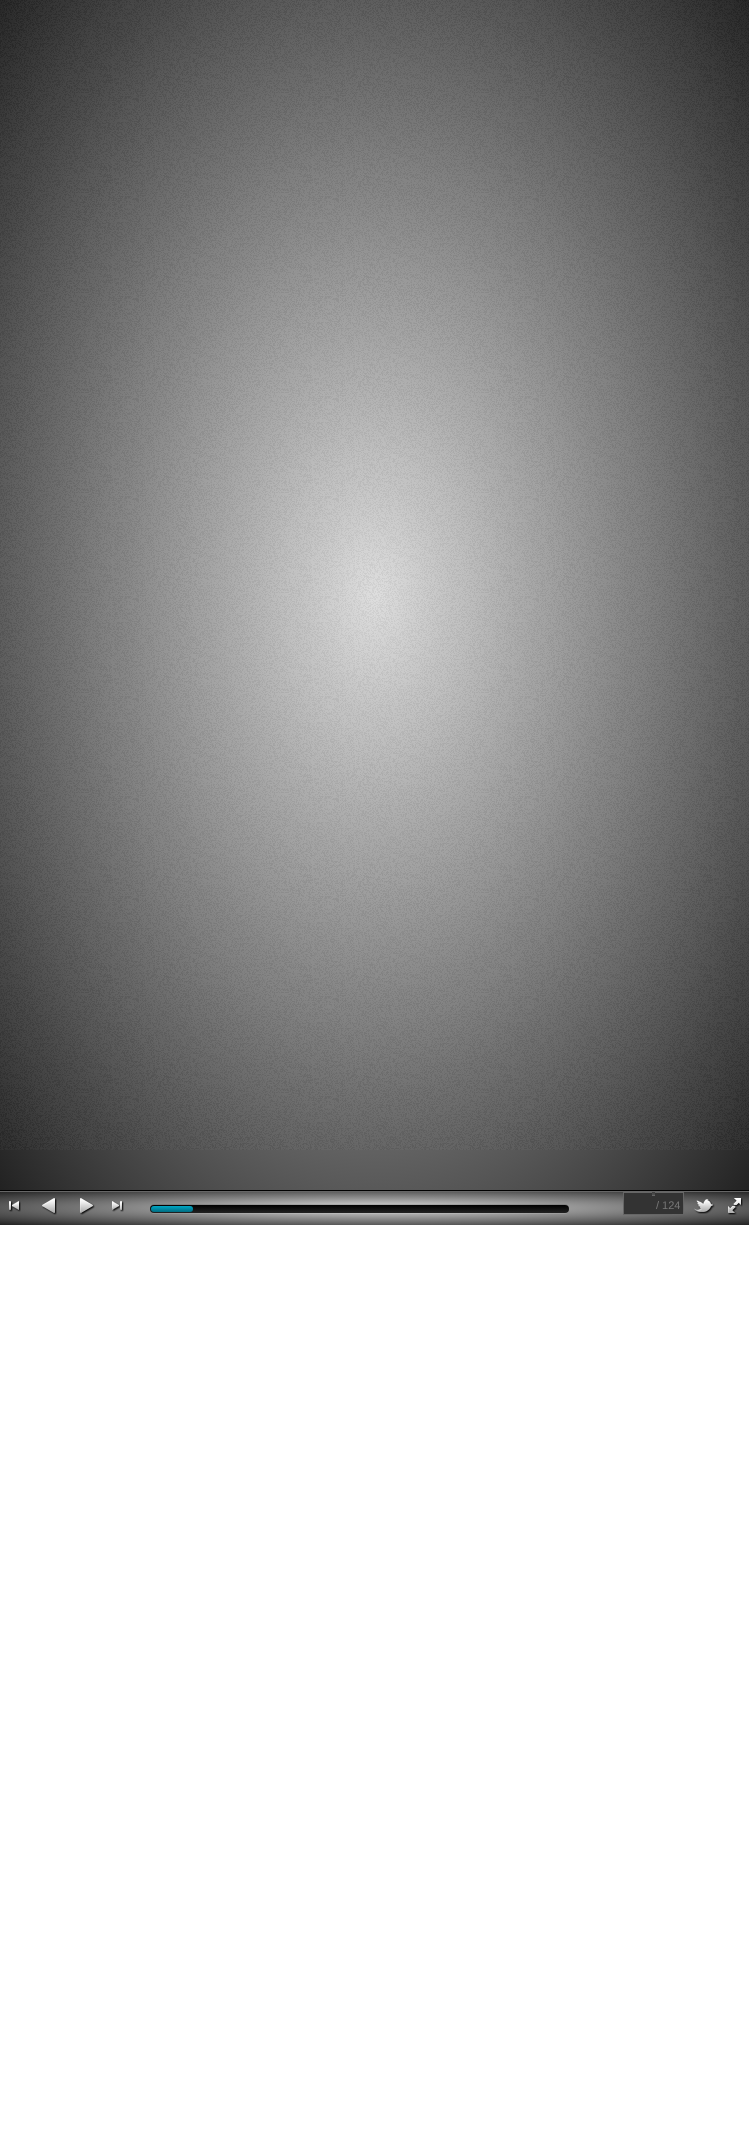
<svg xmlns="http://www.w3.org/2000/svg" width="749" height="2142">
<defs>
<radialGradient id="g1" gradientUnits="userSpaceOnUse" cx="0" cy="0" r="1" gradientTransform="matrix(530 0 0 841 375 595)"><stop offset="0" stop-color="#ddd"/><stop offset="1" stop-color="#222"/></radialGradient>
<radialGradient id="g2" gradientUnits="userSpaceOnUse" cx="0" cy="0" r="1" gradientTransform="matrix(530 0 0 24 375 1208)"><stop offset="0" stop-color="#ddd"/><stop offset="1" stop-color="#222"/></radialGradient>
<linearGradient id="g3" gradientUnits="userSpaceOnUse" x1="360" y1="1205" x2="360" y2="1213"><stop offset="0" stop-color="#000"/><stop offset="1" stop-color="#222"/></linearGradient>
<linearGradient id="g4" gradientUnits="userSpaceOnUse" x1="172" y1="1206" x2="172" y2="1212"><stop offset="0" stop-color="#00a7c5"/><stop offset="1" stop-color="#006c80"/></linearGradient>
</defs>
<rect width="100%" height="100%" fill="#fff"/>
<rect width="749" height="1190" fill="url(#g1)"/>
<rect y="1190" width="749" height="1" fill="#000"/>
<image x="0" y="0" width="749" height="1150" href="media/1.png"/>
<rect y="1192" width="749" height="33" fill="url(#g2)"/>
<rect y="1191" width="749" height="1" fill="#666"/>
<image x="9" y="1201" width="12" height="11" href="media/2.png"/>
<image x="42" y="1198" width="15" height="17" href="media/3.png"/>
<image x="80" y="1198" width="15" height="17" href="media/4.png"/>
<image x="112" y="1201" width="12" height="11" href="media/5.png"/>
<path d="M154 1204c-2 0-4 2-4 4c0-1 2-3 4-3h411c2 0 4 2 4 3c0-2-2-4-4-4z" fill="#0000001f"/>
<path d="M150 1210c0 2 2 4 4 4h411c2 0 4-2 4-4c0 1-2 3-4 3h-411c-2 0-4-2-4-3z" fill="#ffffff1f"/>
<rect x="150" y="1205" width="419" height="8" rx="4" fill="url(#g3)"/>
<rect x="151" y="1206" width="42" height="6" rx="3" fill="url(#g4)"/>
<rect x="624" y="1193" width="28" height="21" fill="#333"/>
<rect x="623" y="1192" width="29" height="1" fill="#666"/>
<rect x="623" y="1214" width="29" height="1" fill="#666"/>
<rect x="623" y="1192" width="1" height="23" fill="#666"/>
<rect x="652" y="1195" width="3" height="20" fill="#333"/>
<rect x="652" y="1195" width="3" height="1" fill="#666"/>
<rect x="652" y="1214" width="20" height="1" fill="#666"/>
<rect x="655" y="1193" width="28" height="21" fill="#333"/>
<rect x="655" y="1192" width="29" height="1" fill="#666"/>
<rect x="683" y="1192" width="1" height="23" fill="#666"/>
<text x="656" y="1209" style="font-family:Liberation Sans;font-size:11px;fill:#777">/ 124</text>
<image x="694" y="1199" width="21" height="15" href="media/6.png"/>
<image x="728" y="1198" width="15" height="17" href="media/7.png"/>
</svg>
